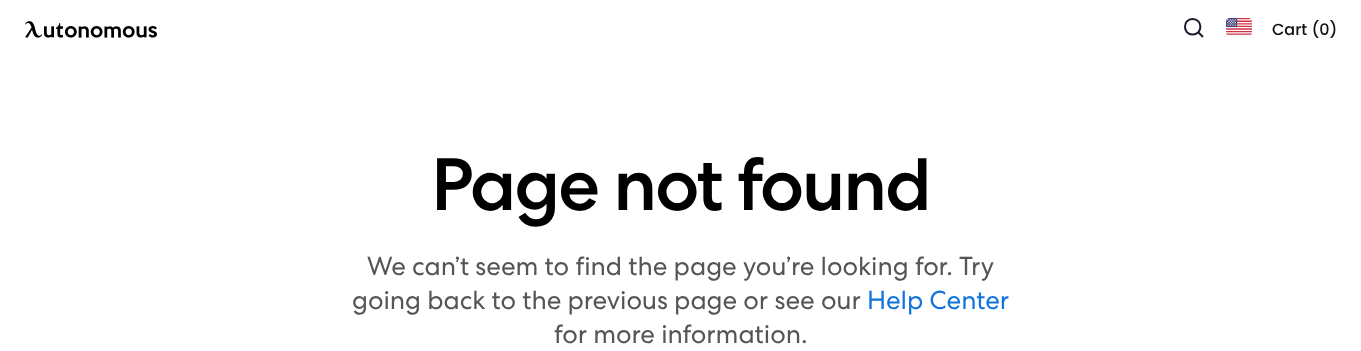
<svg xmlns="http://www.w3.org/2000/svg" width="1361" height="351">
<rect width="100%" height="100%" fill="#fff"/>
<image x="25" y="21" width="132" height="17" href="media/1.png"/>
<path d="M1203 37l-5-5m-5.5 2.5c-10 0-10-15.5 0-15.5c10.5 0 10.5 15.5 0 15.5z" fill="none" stroke="#1d1929" stroke-width="2"/>
<image x="1226" y="18" width="26" height="17" href="media/2.png"/>
<text x="1272" y="35" style="font-family:Poppins;font-size:16px;font-weight:500;fill:#111">Cart (0)</text>
<text x="431" y="210" style="font-family:'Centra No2';font-size:74px;font-weight:500;letter-spacing:-2.25px;fill:#000">Page not found</text>
<text x="367" y="275" style="font-family:'Centra No2';font-size:26px;letter-spacing:-0.08px;fill:#555">We can’t seem to find the page you’re looking for. Try</text>
<text x="352" y="309" style="font-family:'Centra No2';font-size:26px;letter-spacing:-0.08px;fill:#555">going back to the previous page or see our</text>
<text x="867" y="309" style="font-family:'Centra No2';font-size:26px;letter-spacing:-0.08px;fill:#1174dc">Help Center</text>
<text x="554" y="343" style="font-family:'Centra No2';font-size:26px;letter-spacing:-0.08px;fill:#555">for more information.</text>
</svg>
